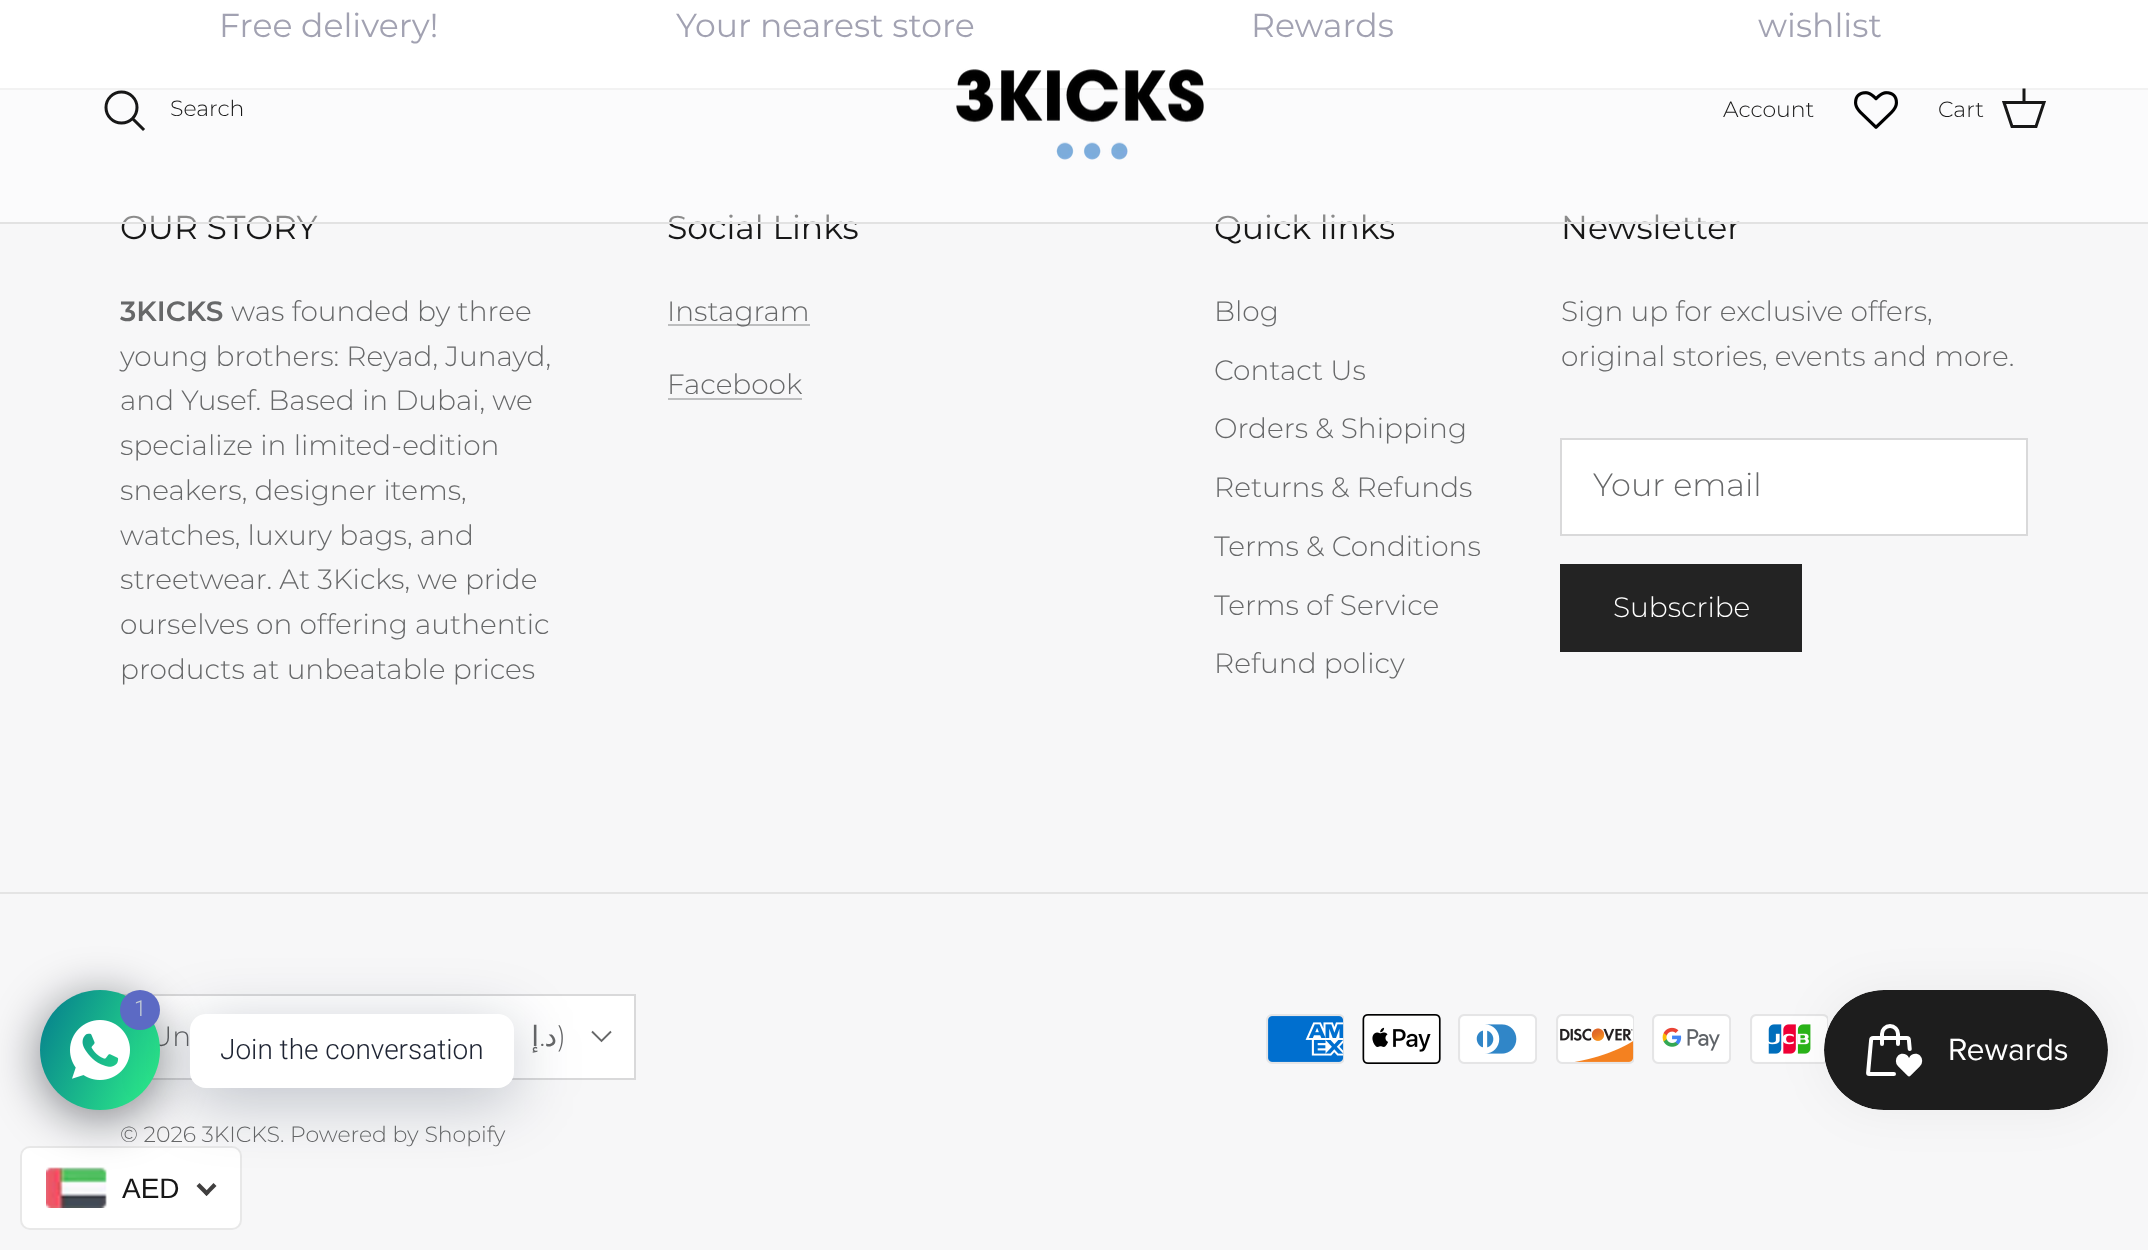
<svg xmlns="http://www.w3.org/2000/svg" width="2148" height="1250">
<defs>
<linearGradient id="g1" gradientUnits="userSpaceOnUse" x1="28" y1="1016" x2="172" y2="1084"><stop offset="0" stop-color="#047c8d"/><stop offset="1" stop-color="#2ff289"/></linearGradient>
</defs>
<rect width="100%" height="100%" fill="#fff"/>
<text x="219" y="37" style="font-family:Montserrat;font-size:33.1px;fill:#454564">Free delivery!</text>
<text x="676" y="37" style="font-family:Montserrat;font-size:33.1px;fill:#454564">Your nearest store</text>
<text x="1251" y="37" style="font-family:Montserrat;font-size:33.1px;fill:#454564">Rewards</text>
<text x="1758" y="37" style="font-family:Montserrat;font-size:33.1px;fill:#454564">wishlist</text>
<rect y="90" width="2148" height="1160" fill="#f7f7f8"/>
<rect y="88" width="2148" height="2" fill="#e4e4e4"/>
<text x="120" y="239" style="font-family:Montserrat;font-size:33.1px;fill:#171717">OUR STORY</text>
<text x="120" y="321" style="font-family:Montserrat;font-size:28px;font-weight:600;fill:#676869">3KICKS</text>
<text x="231" y="321" style="font-family:Montserrat;font-size:28px;font-weight:300;fill:#676869">was founded by three</text>
<text x="120" y="366" style="font-family:Montserrat;font-size:28px;font-weight:300;fill:#676869">young brothers: Reyad, Junayd,</text>
<text x="120" y="410" style="font-family:Montserrat;font-size:28px;font-weight:300;fill:#676869">and Yusef. Based in Dubai, we</text>
<text x="120" y="455" style="font-family:Montserrat;font-size:28px;font-weight:300;fill:#676869">specialize in limited-edition</text>
<text x="120" y="500" style="font-family:Montserrat;font-size:28px;font-weight:300;fill:#676869">sneakers, designer items,</text>
<text x="120" y="545" style="font-family:Montserrat;font-size:28px;font-weight:300;fill:#676869">watches, luxury bags, and</text>
<text x="120" y="589" style="font-family:Montserrat;font-size:28px;font-weight:300;fill:#676869">streetwear. At 3Kicks, we pride</text>
<text x="120" y="634" style="font-family:Montserrat;font-size:28px;font-weight:300;fill:#676869">ourselves on offering authentic</text>
<text x="120" y="679" style="font-family:Montserrat;font-size:28px;font-weight:300;fill:#676869">products at unbeatable prices</text>
<text x="667" y="239" style="font-family:Montserrat;font-size:33.1px;fill:#171717">Social Links</text>
<rect x="668" y="324" width="142" height="2" fill="#bdbebf"/>
<text x="667" y="321" style="font-family:Montserrat;font-size:28px;font-weight:300;fill:#676869">Instagram</text>
<text x="667" y="394" style="font-family:Montserrat;font-size:28px;font-weight:300;fill:#676869">Facebook</text>
<rect x="668" y="398" width="134" height="2" fill="#bdbebf"/>
<text x="1214" y="239" style="font-family:Montserrat;font-size:33.1px;fill:#171717">Quick links</text>
<text x="1214" y="321" style="font-family:Montserrat;font-size:28px;font-weight:300;fill:#676869">Blog</text>
<text x="1214" y="380" style="font-family:Montserrat;font-size:28px;font-weight:300;fill:#676869">Contact Us</text>
<text x="1214" y="438" style="font-family:Montserrat;font-size:28px;font-weight:300;fill:#676869">Orders &amp; Shipping</text>
<text x="1214" y="497" style="font-family:Montserrat;font-size:28px;font-weight:300;fill:#676869">Returns &amp; Refunds</text>
<text x="1214" y="556" style="font-family:Montserrat;font-size:28px;font-weight:300;fill:#676869">Terms &amp; Conditions</text>
<text x="1214" y="615" style="font-family:Montserrat;font-size:28px;font-weight:300;fill:#676869">Terms of Service</text>
<text x="1214" y="673" style="font-family:Montserrat;font-size:28px;font-weight:300;fill:#676869">Refund policy</text>
<text x="1561" y="239" style="font-family:Montserrat;font-size:33.1px;fill:#171717">Newsletter</text>
<text x="1561" y="321" style="font-family:Montserrat;font-size:28px;font-weight:300;fill:#676869">Sign up for exclusive offers,</text>
<text x="1561" y="366" style="font-family:Montserrat;font-size:28px;font-weight:300;fill:#676869">original stories, events and more.</text>
<rect x="1561" y="439" width="466" height="96" fill="#fff" stroke="#d9d9da" stroke-width="2"/>
<text x="1593" y="496" style="font-family:Montserrat;font-size:32px;font-weight:300;fill:#676869">Your email</text>
<rect x="1560" y="564" width="242" height="88" fill="#232323"/>
<text x="1613" y="617" style="font-family:Montserrat;font-size:28px;font-weight:300;fill:#fff">Subscribe</text>
<rect y="892" width="2148" height="2" fill="#e4e4e4"/>
<rect x="153" y="996" width="481" height="82" fill="#fff"/>
<rect x="121" y="995" width="514" height="84" fill="none" stroke="#d9d9da" stroke-width="2"/>
<text x="150" y="1046" style="font-family:Montserrat;font-size:28px;font-weight:300;fill:#676869">Un</text>
<text x="539" y="1046" style="font-family:DejaVu Sans;font-size:28px;direction:rtl;fill:#676869">إ</text>
<text x="545" y="1046" style="font-family:Montserrat;font-size:28px;font-weight:300;direction:rtl;fill:#676869">.</text>
<text x="557" y="1046" style="font-family:DejaVu Sans;font-size:28px;direction:rtl;fill:#676869">د</text>
<text x="557" y="1046" style="font-family:Montserrat;font-size:28px;font-weight:300;fill:#676869">)</text>
<path d="M611 1031.5l-9.5 9.5l-9.5-9.5" fill="none" stroke="#676869" stroke-width="1.9"/>
<text x="120" y="1142" style="font-family:Montserrat;font-size:22px;font-weight:300;fill:#676869">© 2026 3KICKS</text>
<text x="280" y="1142" style="font-family:Montserrat;font-size:22px;font-weight:300;fill:#676869">. Powered by Shopify</text>
<image x="1266" y="1014" width="78" height="50" href="media/1.png"/>
<image x="1362" y="1014" width="79" height="50" href="media/2.png"/>
<image x="1458" y="1014" width="79" height="50" href="media/3.png"/>
<image x="1556" y="1014" width="78" height="50" href="media/4.png"/>
<image x="1652" y="1014" width="79" height="50" href="media/5.png"/>
<image x="1750" y="1014" width="78" height="50" href="media/6.png"/>
<rect y="12" width="2148" height="210" fill="#ffffff80"/>
<rect y="222" width="2148" height="2" fill="#e2e2e2"/>
<circle cx="121.5" cy="107.5" r="15.5" fill="none" stroke="#171717" stroke-width="3"/>
<text x="170" y="116" style="font-family:Montserrat;font-size:22px;font-weight:300;fill:#171717">Search</text>
<path d="M134 120l9 9" fill="none" stroke="#171717" stroke-width="3" stroke-linecap="square"/>
<image x="956" y="69" width="248" height="91" href="media/7.png"/>
<text x="1723" y="117" style="font-family:Montserrat;font-size:22px;font-weight:300;fill:#171717">Account</text>
<image x="1854" y="91" width="44" height="38" href="media/8.png"/>
<text x="1938" y="117" style="font-family:Montserrat;font-size:22px;font-weight:300;fill:#171717">Cart</text>
<path d="M2004 102.5h40l-8 24h-24z" fill="none" stroke="#171717" stroke-width="3"/>
<path d="M2024 102v-12" fill="none" stroke="#171717" stroke-width="3" stroke-linecap="square"/>
<rect x="21" y="1147" width="220" height="82" rx="9" fill="#fff" stroke="#e8e8e8" stroke-width="2"/>
<image x="46" y="1167" width="61" height="41" href="media/11.png"/>
<path d="M213.5 1183l3 3l-10 10l-2.5-3z" fill="#403f3f"/>
<path d="M199.5 1183l10 10l-3 3l-10-10z" fill="#403f3f"/>
<rect x="40" y="998" width="120" height="120" rx="60" fill="#02061080" filter="blur(24px)"/>
<circle cx="100" cy="1050" r="60" fill="url(#g1)"/>
<rect x="190" y="1026" width="324" height="74" rx="16" fill="#00122e3d" filter="blur(32px)"/>
<image x="70" y="1020" width="60" height="60" href="media/9.png"/>
<circle cx="140" cy="1010" r="20" fill="#5c6ac4"/>
<text x="134" y="1016" style="font-family:Roboto;font-size:22px;font-weight:300;fill:#c4cdd5">1</text>
<rect x="190" y="1014" width="324" height="74" rx="16" fill="#fff"/>
<text x="220" y="1059" style="font-family:Roboto;font-size:28px;font-weight:300;fill:#1e2433">Join the conversation</text>
<rect x="1824" y="990" width="284" height="120" rx="60" fill="#0000000d" filter="blur(25px)"/>
<image x="1824" y="990" width="284" height="120" href="media/10.png"/>
<text x="122" y="1198" style="font-family:Liberation Sans;font-size:28px;fill:#171717">AED</text>
</svg>
